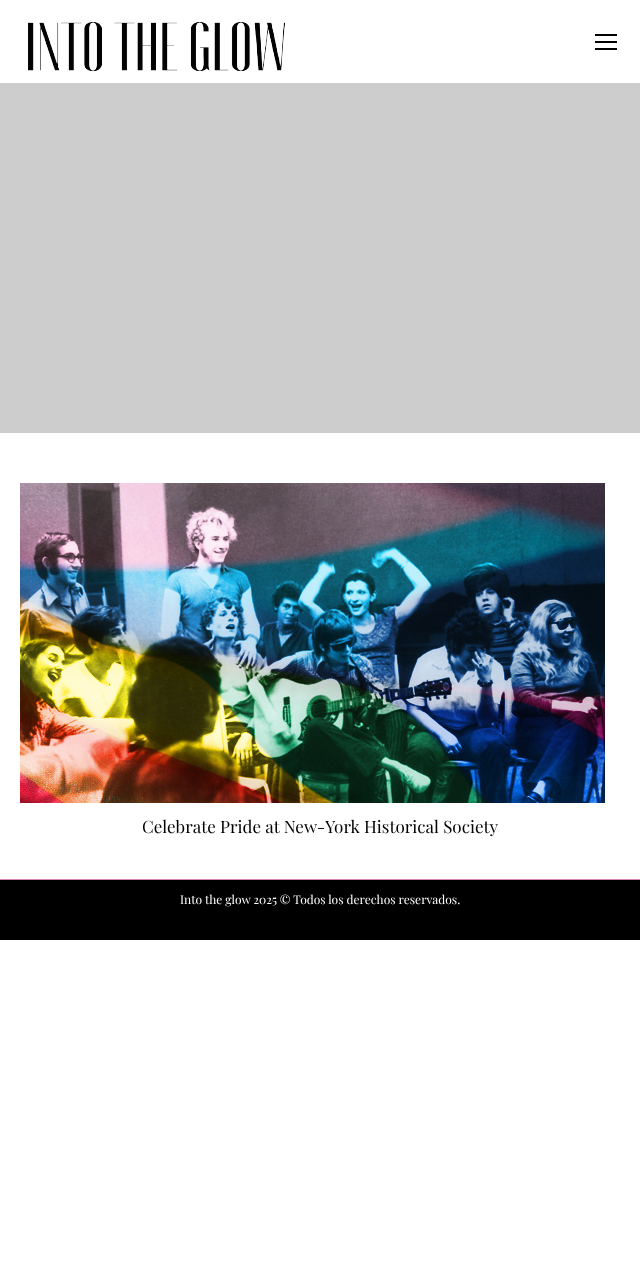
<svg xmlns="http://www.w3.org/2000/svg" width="640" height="1275">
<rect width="100%" height="100%" fill="#fff"/>
<image x="28" y="22" width="257" height="50" href="media/1.png"/>
<rect x="595" y="34" width="22" height="2" fill="#000"/>
<rect x="595" y="41" width="22" height="2" fill="#000"/>
<rect x="595" y="48" width="22" height="2" fill="#000"/>
<rect y="83" width="640" height="350" fill="#cdcdcd"/>
<image x="20" y="483" width="585" height="320" href="media/2.png"/>
<text x="142" y="833" style="font-family:Playfair Display;font-size:17px;fill:#000">Celebrate Pride at New-York Historical Society</text>
<rect y="880" width="640" height="60" fill="#000"/>
<rect y="879" width="640" height="1" fill="#db84b3"/>
<text x="180" y="904" style="font-family:Playfair Display;font-size:12px;fill:#fff">Into the glow 2025 © Todos los derechos reservados.</text>
</svg>
